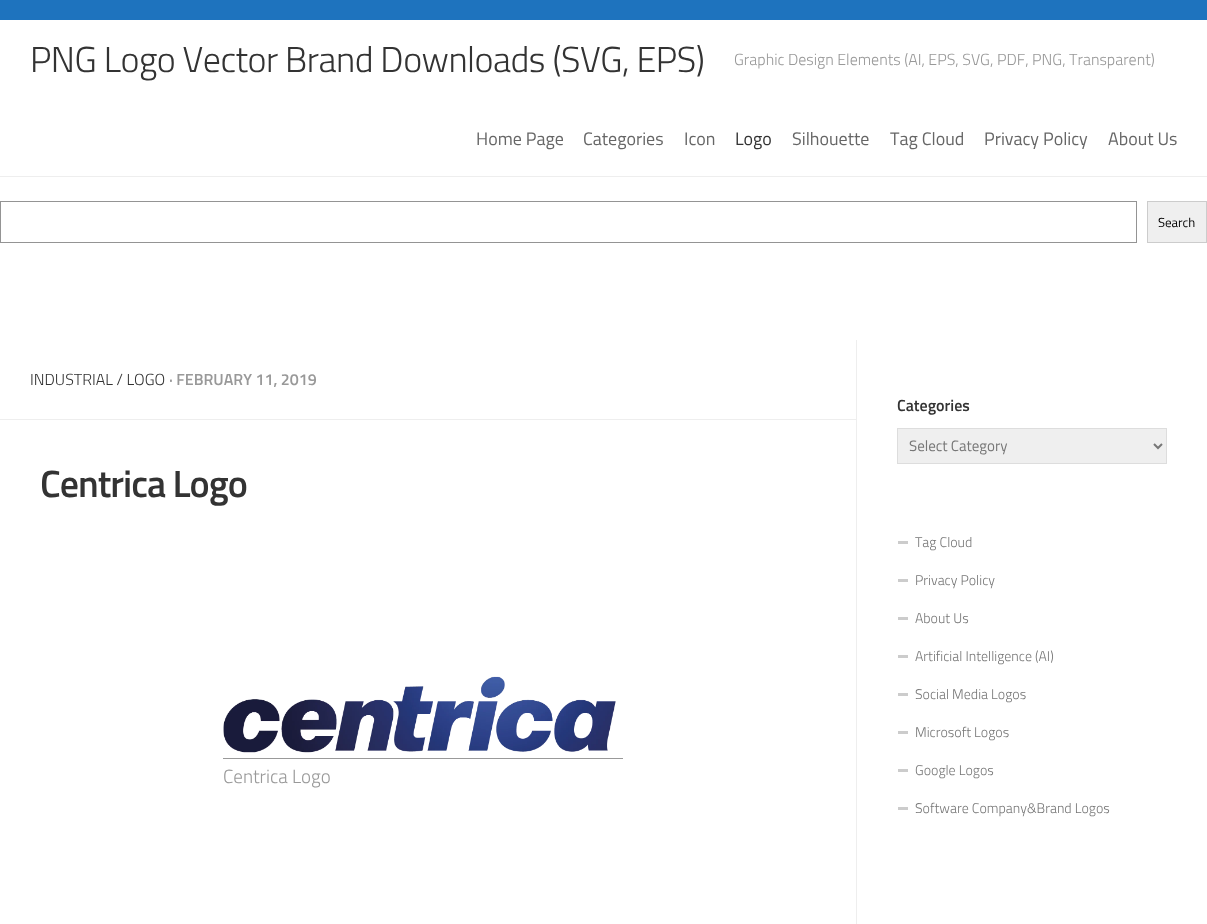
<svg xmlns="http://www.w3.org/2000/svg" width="1207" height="924">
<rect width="100%" height="100%" fill="#1e73be"/>
<rect y="20" width="1207" height="904" fill="#fff"/>
<rect y="176" width="1207" height="1" fill="#eee"/>
<text x="30" y="72" style="font-family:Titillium;font-size:36px;font-weight:300;letter-spacing:-0.5px;fill:#333">PNG Logo Vector Brand Downloads (SVG, EPS)</text>
<text x="734" y="65" style="font-family:Titillium;font-size:16px;font-weight:300;fill:#999">Graphic Design Elements (AI, EPS, SVG, PDF, PNG, Transparent)</text>
<text x="476" y="145" style="font-family:Titillium;font-size:18px;fill:#666">Home Page</text>
<text x="583" y="145" style="font-family:Titillium;font-size:18px;fill:#666">Categories</text>
<text x="684" y="145" style="font-family:Titillium;font-size:18px;fill:#666">Icon</text>
<text x="735" y="145" style="font-family:Titillium;font-size:18px;fill:#333">Logo</text>
<text x="792" y="145" style="font-family:Titillium;font-size:18px;fill:#666">Silhouette</text>
<text x="890" y="145" style="font-family:Titillium;font-size:18px;fill:#666">Tag Cloud</text>
<text x="984" y="145" style="font-family:Titillium;font-size:18px;fill:#666">Privacy Policy</text>
<text x="1108" y="145" style="font-family:Titillium;font-size:18px;fill:#666">About Us</text>
<rect x="0.5" y="201.5" width="1136" height="41" fill="none" stroke="#949494"/>
<rect x="1147.5" y="201.5" width="59" height="41" fill="#efefef" stroke="#ccc"/>
<text x="1158" y="227" style="font-family:Titillium;font-size:13px;fill:#000">Search</text>
<rect y="419" width="856" height="1" fill="#eee"/>
<text x="30" y="385" style="font-family:Titillium;font-size:16px;font-weight:300;fill:#333">INDUSTRIAL / LOGO</text>
<text x="169" y="385" style="font-family:Titillium;font-size:16px;font-weight:600;fill:#999">· FEBRUARY 11, 2019</text>
<text x="40" y="497" style="font-family:Titillium;font-size:38px;font-weight:600;letter-spacing:-1px;fill:#333">Centrica Logo</text>
<image x="223" y="676" width="393" height="77" href="media/1.png"/>
<rect x="223" y="758" width="400" height="1" fill="#999"/>
<text x="223" y="783" style="font-family:Titillium;font-size:19px;font-weight:300;fill:#999">Centrica Logo</text>
<rect x="856" y="340" width="1" height="584" fill="#eee"/>
<text x="897" y="411" style="font-family:Titillium;font-size:16px;font-weight:600;fill:#333">Categories</text>
<rect x="897.5" y="428.5" width="269" height="35" fill="#efefef" stroke="#ddd"/>
<path d="M1154 444l4 4l4-4" fill="none" stroke="#777" stroke-width="2"/>
<text x="909" y="451" style="font-family:Titillium;font-size:15px;fill:#777">Select Category</text>
<rect x="898" y="541" width="10" height="3" fill="#ccc"/>
<text x="915" y="547" style="font-family:Titillium;font-size:14px;font-weight:300;fill:#777">Tag Cloud</text>
<rect x="898" y="579" width="10" height="3" fill="#ccc"/>
<text x="915" y="585" style="font-family:Titillium;font-size:14px;font-weight:300;fill:#777">Privacy Policy</text>
<rect x="898" y="617" width="10" height="3" fill="#ccc"/>
<text x="915" y="623" style="font-family:Titillium;font-size:14px;font-weight:300;fill:#777">About Us</text>
<rect x="898" y="655" width="10" height="3" fill="#ccc"/>
<text x="915" y="661" style="font-family:Titillium;font-size:14px;font-weight:300;fill:#777">Artificial Intelligence (AI)</text>
<rect x="898" y="693" width="10" height="3" fill="#ccc"/>
<text x="915" y="699" style="font-family:Titillium;font-size:14px;font-weight:300;fill:#777">Social Media Logos</text>
<rect x="898" y="731" width="10" height="3" fill="#ccc"/>
<text x="915" y="737" style="font-family:Titillium;font-size:14px;font-weight:300;fill:#777">Microsoft Logos</text>
<rect x="898" y="769" width="10" height="3" fill="#ccc"/>
<text x="915" y="775" style="font-family:Titillium;font-size:14px;font-weight:300;fill:#777">Google Logos</text>
<rect x="898" y="807" width="10" height="3" fill="#ccc"/>
<text x="915" y="813" style="font-family:Titillium;font-size:14px;font-weight:300;fill:#777">Software Company&amp;Brand Logos</text>
</svg>
